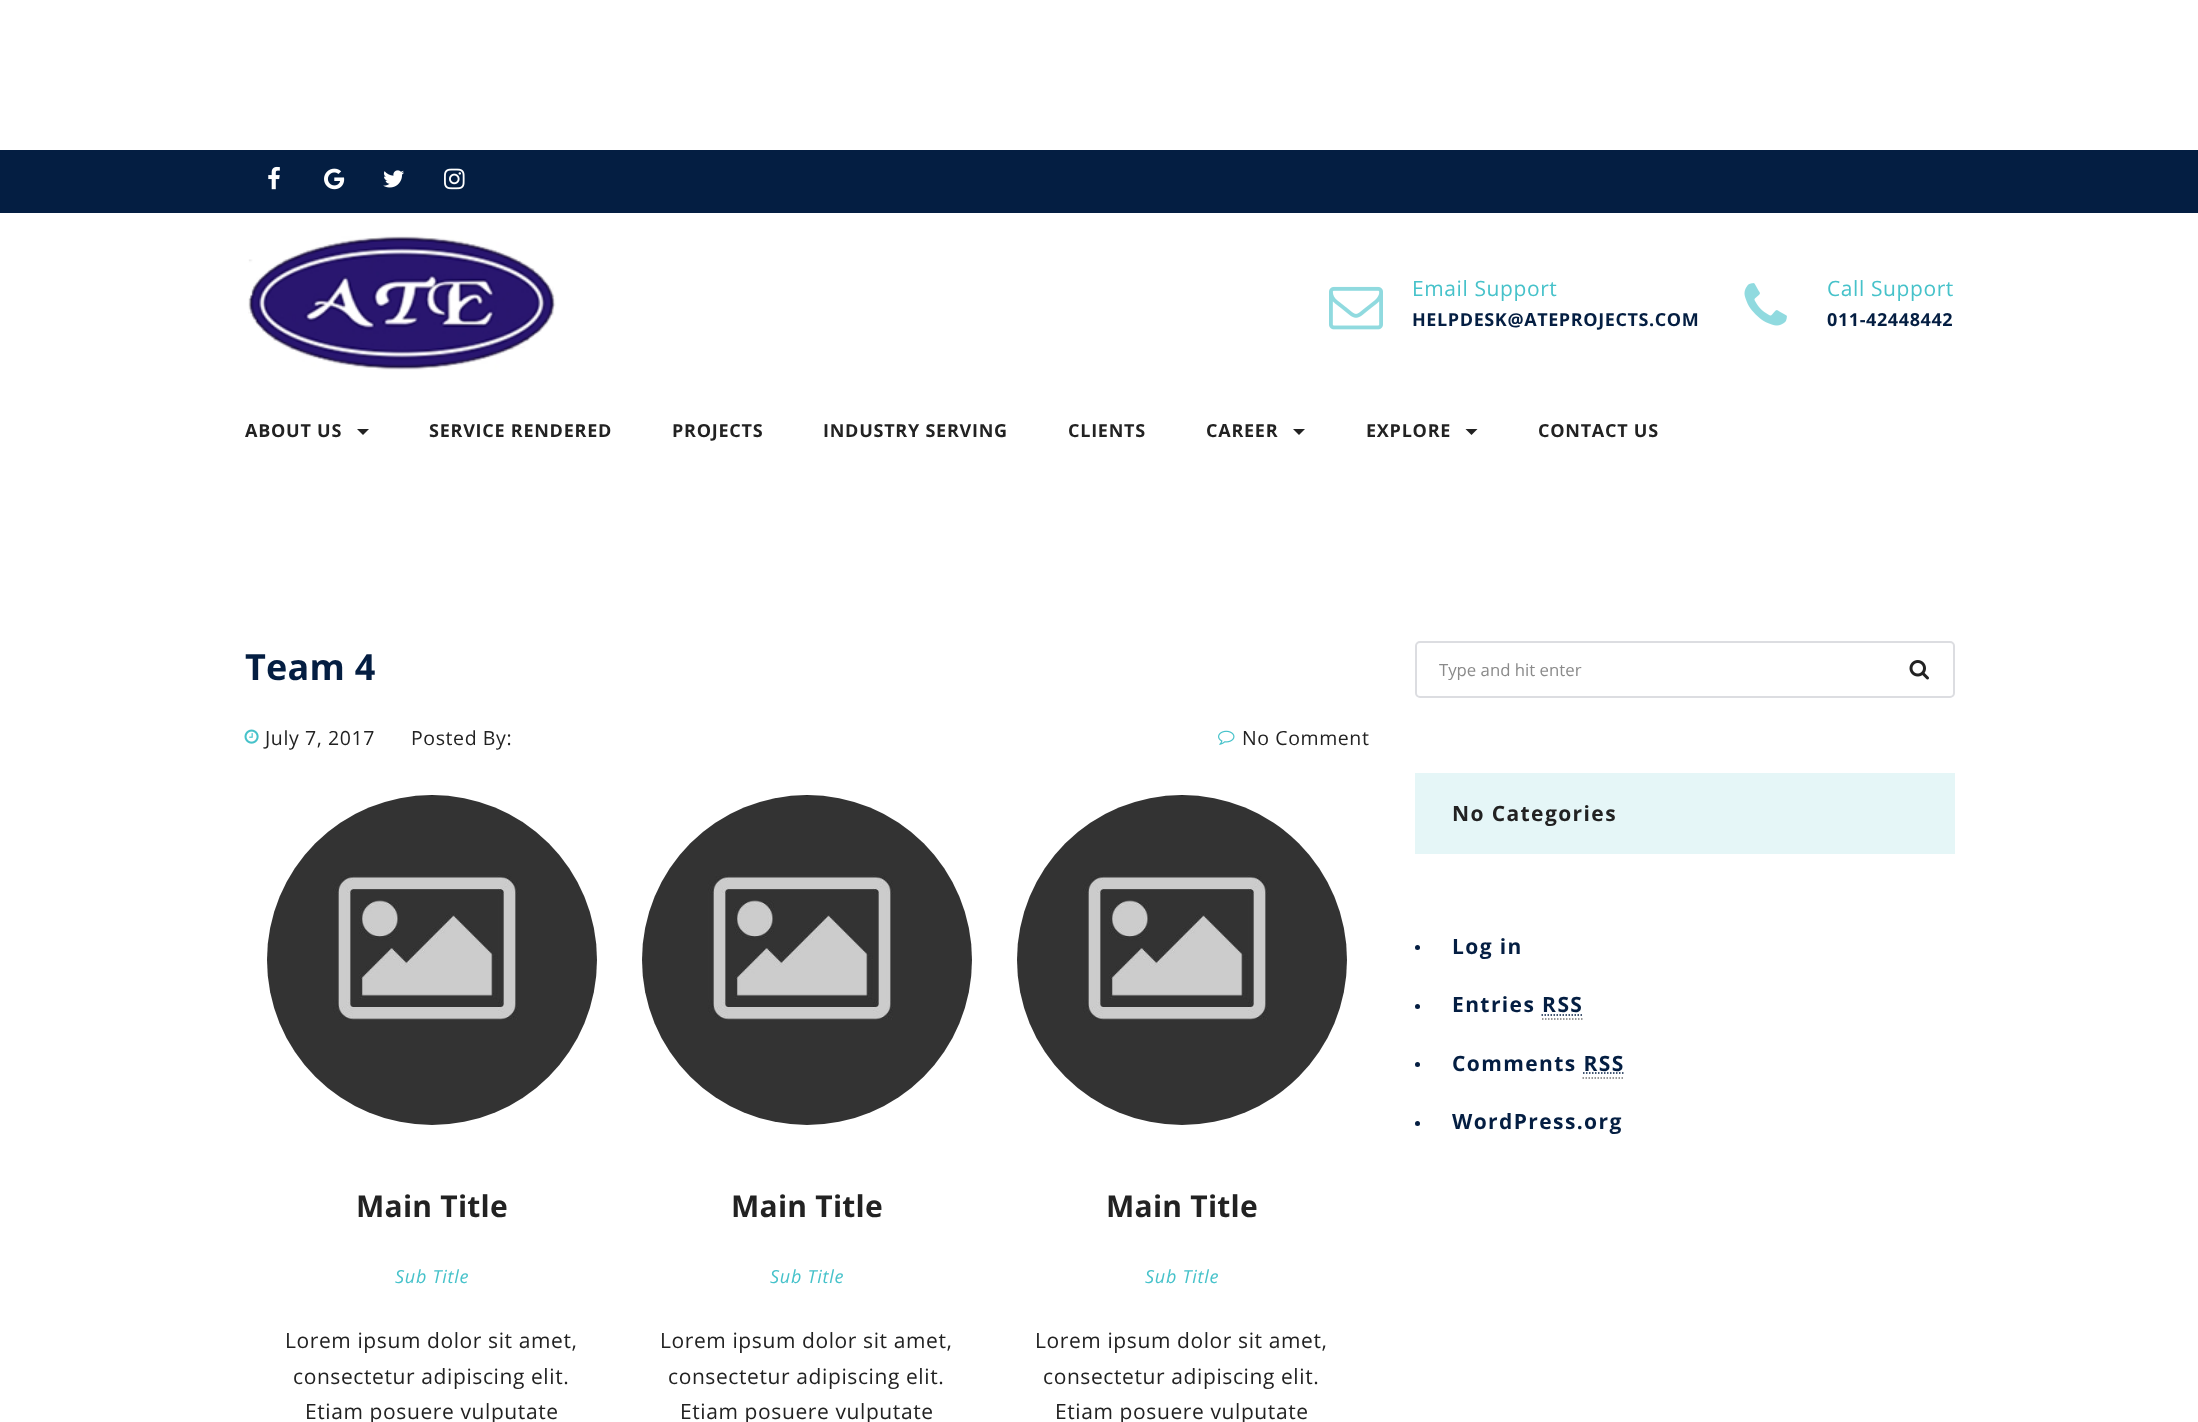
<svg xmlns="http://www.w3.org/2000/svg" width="2198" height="1422">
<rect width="100%" height="100%" fill="#fff"/>
<rect y="150" width="2198" height="63" fill="#041e42"/>
<image x="268" y="166" width="12" height="24" href="media/1.png"/>
<image x="324" y="168" width="21" height="22" href="media/2.png"/>
<image x="383" y="170" width="21" height="18" href="media/3.png"/>
<image x="444" y="168" width="21" height="22" href="media/4.png"/>
<image x="248" y="236" width="308" height="134" href="media/5.png"/>
<image x="1329" y="286" width="54" height="44" href="media/6.png"/>
<text x="1412" y="296" style="font-family:Open Sans;font-size:21px;letter-spacing:0.6px;fill:#46c2ca">Email Support</text>
<text x="1412" y="326" style="font-family:Open Sans;font-size:18px;font-weight:bold;letter-spacing:0.6px;fill:#041e42">HELPDESK@ATEPROJECTS.COM</text>
<image x="1744" y="283" width="43" height="43" href="media/7.png"/>
<text x="1827" y="296" style="font-family:Open Sans;font-size:21px;letter-spacing:0.6px;fill:#46c2ca">Call Support</text>
<text x="1827" y="326" style="font-family:Open Sans;font-size:18px;font-weight:bold;letter-spacing:0.6px;fill:#041e42">011-42448442</text>
<text x="245" y="437" style="font-family:Open Sans;font-size:18px;font-weight:bold;letter-spacing:0.75px;fill:#222">ABOUT US</text>
<path d="M357 429h12l-6 6z" fill="#222"/>
<text x="429" y="437" style="font-family:Open Sans;font-size:18px;font-weight:bold;letter-spacing:0.75px;fill:#222">SERVICE RENDERED</text>
<text x="672" y="437" style="font-family:Open Sans;font-size:18px;font-weight:bold;letter-spacing:0.75px;fill:#222">PROJECTS</text>
<text x="823" y="437" style="font-family:Open Sans;font-size:18px;font-weight:bold;letter-spacing:0.75px;fill:#222">INDUSTRY SERVING</text>
<text x="1068" y="437" style="font-family:Open Sans;font-size:18px;font-weight:bold;letter-spacing:0.75px;fill:#222">CLIENTS</text>
<text x="1206" y="437" style="font-family:Open Sans;font-size:18px;font-weight:bold;letter-spacing:0.75px;fill:#222">CAREER</text>
<path d="M1293 429h12l-6 6z" fill="#222"/>
<text x="1366" y="437" style="font-family:Open Sans;font-size:18px;font-weight:bold;letter-spacing:0.75px;fill:#222">EXPLORE</text>
<path d="M1465.5 429h12l-6 6z" fill="#222"/>
<text x="1538" y="437" style="font-family:Open Sans;font-size:18px;font-weight:bold;letter-spacing:0.75px;fill:#222">CONTACT US</text>
<text x="245" y="680" style="font-family:Open Sans;font-size:36px;font-weight:bold;letter-spacing:0.25px;fill:#041e42">Team 4</text>
<image x="244" y="729" width="15" height="15" href="media/8.png"/>
<text x="265" y="745" style="font-family:Open Sans;font-size:19.5px;letter-spacing:0.6px;fill:#222">July 7, 2017</text>
<text x="411" y="745" style="font-family:Open Sans;font-size:19.5px;letter-spacing:0.6px;fill:#222">Posted By:</text>
<image x="1218" y="730" width="17" height="15" href="media/9.png"/>
<text x="1242" y="745" style="font-family:Open Sans;font-size:19.5px;letter-spacing:0.6px;fill:#222">No Comment</text>
<image x="267" y="795" width="330" height="330" href="media/10.png"/>
<text x="356" y="1217" style="font-family:Open Sans;font-size:30px;font-weight:bold;letter-spacing:0.25px;fill:#222">Main Title</text>
<text x="395" y="1283" style="font-family:Open Sans;font-size:18px;font-style:italic;letter-spacing:0.75px;fill:#46c2ca">Sub Title</text>
<text x="285" y="1348" style="font-family:Open Sans;font-size:21px;letter-spacing:0.6px;fill:#222">Lorem ipsum dolor sit amet,</text>
<text x="293" y="1384" style="font-family:Open Sans;font-size:21px;letter-spacing:0.6px;fill:#222">consectetur adipiscing elit.</text>
<text x="305" y="1419" style="font-family:Open Sans;font-size:21px;letter-spacing:0.6px;fill:#222">Etiam posuere vulputate</text>
<image x="642" y="795" width="330" height="330" href="media/11.png"/>
<text x="731" y="1217" style="font-family:Open Sans;font-size:30px;font-weight:bold;letter-spacing:0.25px;fill:#222">Main Title</text>
<text x="770" y="1283" style="font-family:Open Sans;font-size:18px;font-style:italic;letter-spacing:0.75px;fill:#46c2ca">Sub Title</text>
<text x="660" y="1348" style="font-family:Open Sans;font-size:21px;letter-spacing:0.6px;fill:#222">Lorem ipsum dolor sit amet,</text>
<text x="668" y="1384" style="font-family:Open Sans;font-size:21px;letter-spacing:0.6px;fill:#222">consectetur adipiscing elit.</text>
<text x="680" y="1419" style="font-family:Open Sans;font-size:21px;letter-spacing:0.6px;fill:#222">Etiam posuere vulputate</text>
<image x="1017" y="795" width="330" height="330" href="media/12.png"/>
<text x="1106" y="1217" style="font-family:Open Sans;font-size:30px;font-weight:bold;letter-spacing:0.25px;fill:#222">Main Title</text>
<text x="1145" y="1283" style="font-family:Open Sans;font-size:18px;font-style:italic;letter-spacing:0.75px;fill:#46c2ca">Sub Title</text>
<text x="1035" y="1348" style="font-family:Open Sans;font-size:21px;letter-spacing:0.6px;fill:#222">Lorem ipsum dolor sit amet,</text>
<text x="1043" y="1384" style="font-family:Open Sans;font-size:21px;letter-spacing:0.6px;fill:#222">consectetur adipiscing elit.</text>
<text x="1055" y="1419" style="font-family:Open Sans;font-size:21px;letter-spacing:0.6px;fill:#222">Etiam posuere vulputate</text>
<rect x="1416" y="642" width="538" height="55" rx="4" fill="none" stroke="#dcdde1" stroke-width="2"/>
<text x="1439" y="676" style="font-family:Open Sans;font-size:16.75px;fill:#8a8a8a">Type and hit enter</text>
<image x="1909" y="660" width="20" height="20" href="media/13.png"/>
<rect x="1415" y="773" width="540" height="81" fill="#e5f6f7"/>
<text x="1452" y="821" style="font-family:Open Sans;font-size:21px;font-weight:bold;letter-spacing:1.4px;fill:#222">No Categories</text>
<circle cx="1417.5" cy="947.5" r="2.5" fill="#041e42"/>
<text x="1452" y="954" style="font-family:Open Sans;font-size:21px;font-weight:bold;letter-spacing:1.4px;fill:#041e42">Log in</text>
<circle cx="1417.5" cy="1006.5" r="2.5" fill="#041e42"/>
<text x="1452" y="1012" style="font-family:Open Sans;font-size:21px;font-weight:bold;letter-spacing:1.4px;fill:#041e42">Entries RSS</text>
<path d="M1542 1019h40.5" fill="none" stroke="#777" stroke-width="1.5" stroke-dasharray="1.5 1.5"/>
<path d="M1541.5 1015h41.5" fill="none" stroke="#041e42" stroke-width="1.5" stroke-dasharray="1.5 1.5"/>
<circle cx="1417.5" cy="1064.5" r="2.5" fill="#041e42"/>
<text x="1452" y="1071" style="font-family:Open Sans;font-size:21px;font-weight:bold;letter-spacing:1.4px;fill:#041e42">Comments RSS</text>
<path d="M1582.5 1078h42" fill="none" stroke="#777" stroke-width="1.5" stroke-dasharray="1.5 1.5"/>
<path d="M1583 1073h41" fill="none" stroke="#041e42" stroke-width="1.5" stroke-dasharray="1.5 1.5"/>
<circle cx="1417.5" cy="1123.5" r="2.5" fill="#041e42"/>
<text x="1452" y="1129" style="font-family:Open Sans;font-size:21px;font-weight:bold;letter-spacing:1.4px;fill:#041e42">WordPress.org</text>
</svg>
